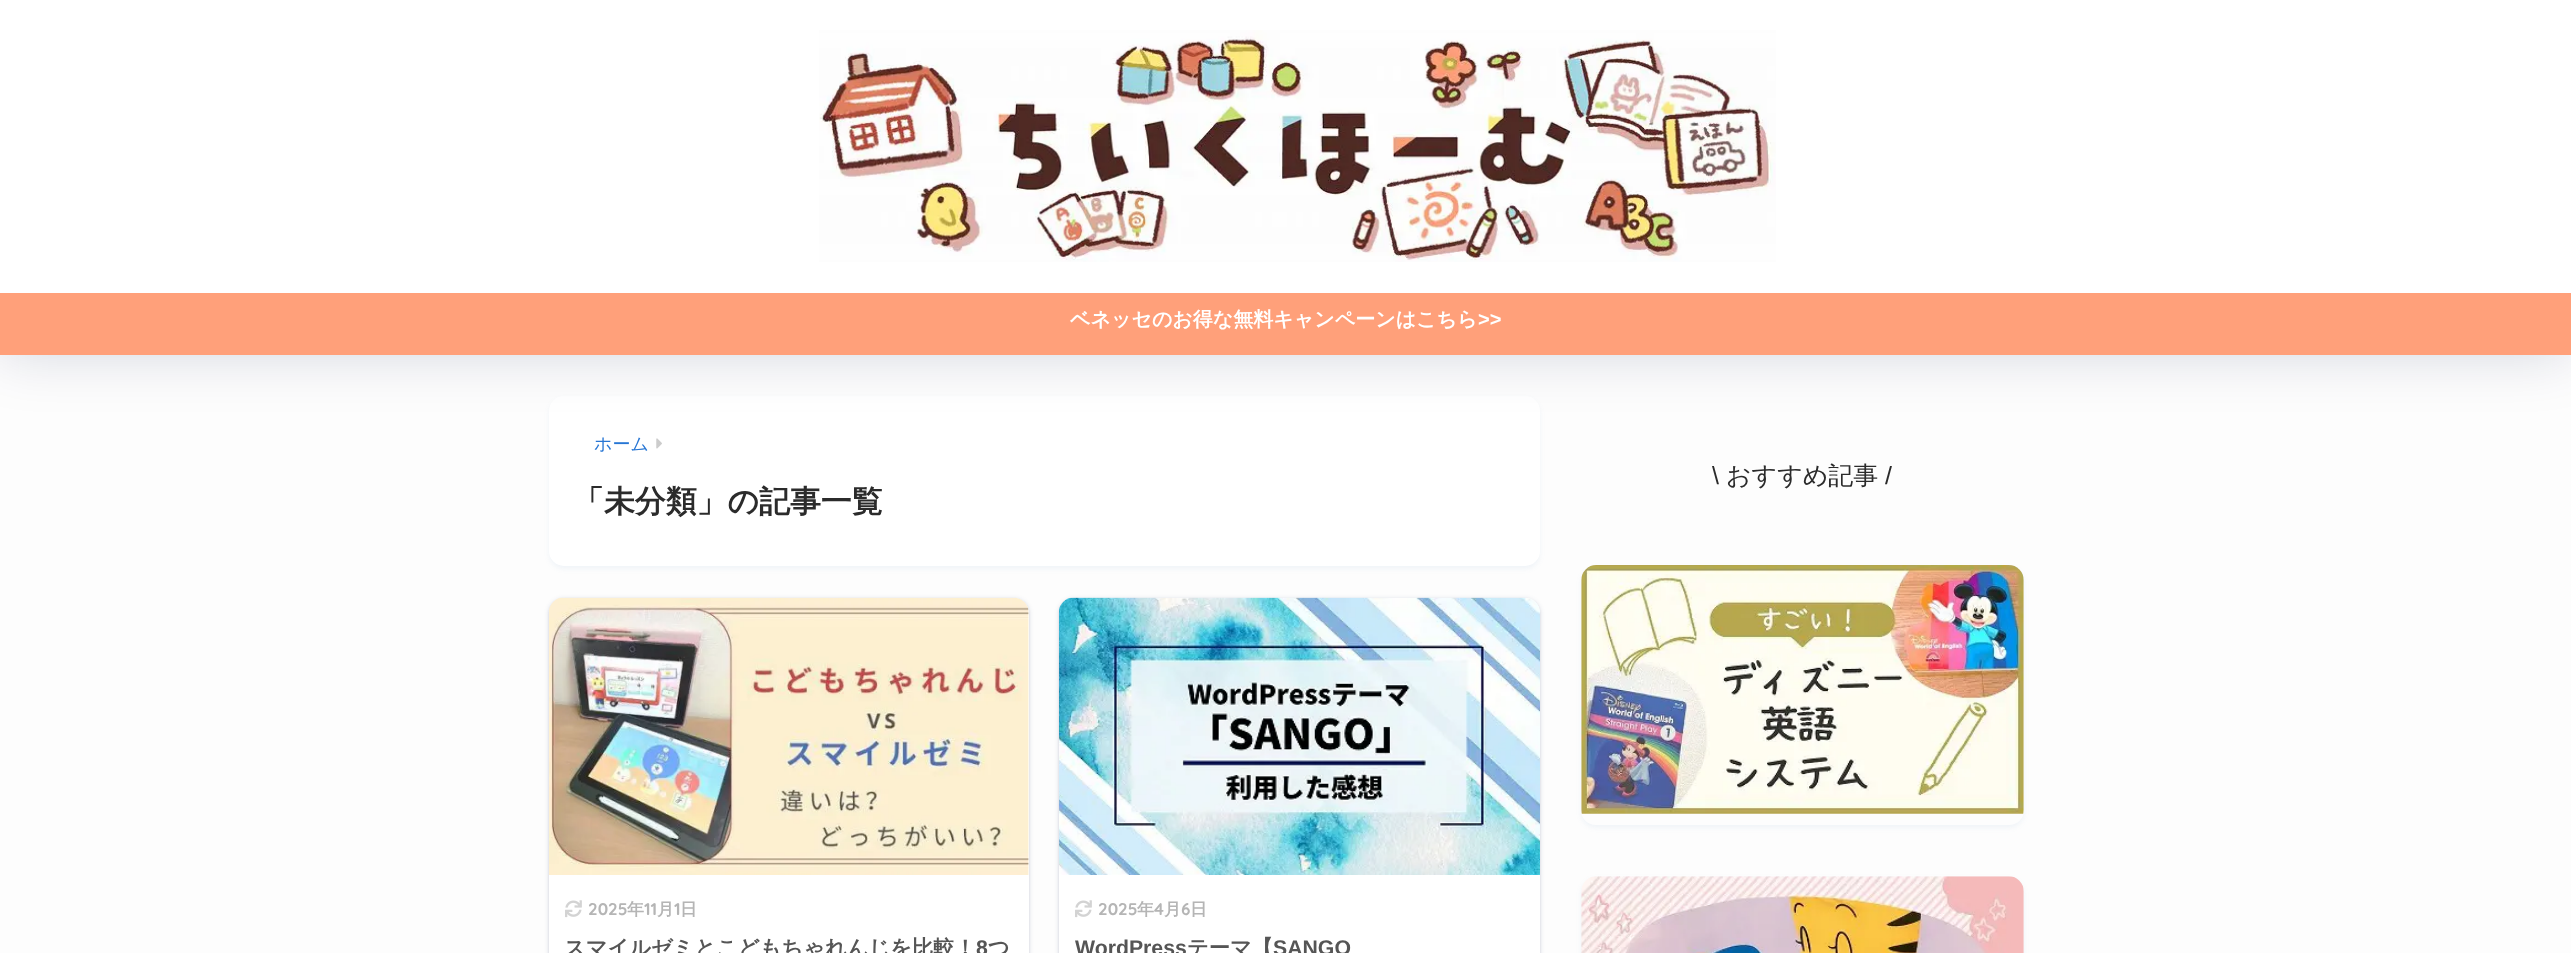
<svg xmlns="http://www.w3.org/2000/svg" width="2571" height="953">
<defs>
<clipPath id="clip1"><path d="M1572 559h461v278h-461zm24 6h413c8.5 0 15 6.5 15 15v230c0 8.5-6.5 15-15 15h-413c-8.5 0-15-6.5-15-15v-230c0-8.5 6.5-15 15-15z" clip-rule="evenodd"/></clipPath>
</defs>
<rect width="100%" height="100%" fill="#fdfdfd"/>
<rect x="549" y="399" width="991" height="170" rx="15" fill="#4385bb12" filter="blur(2.5px)"/>
<rect x="549" y="396" width="991" height="170" rx="15" fill="#fff"/>
<image x="656" y="438" width="6" height="11" href="media/2.png"/>
<rect width="2571" height="355" fill="#000c4229" filter="blur(28px)"/>
<rect y="293" width="2571" height="62" fill="#ffa07a"/>
<rect width="2571" height="293" fill="#fff"/>
<image x="819" y="30" width="957" height="232" href="media/1.png"/>
<text x="1070" y="326" style="font-family:WenQuanYi Zen Hei;font-size:20px;font-weight:bold;fill:#fff">ベネッセのお得な無料キャンペーンはこちら</text>
<text x="1478" y="326" style="font-family:Liberation Sans;font-size:20px;font-weight:bold;fill:#fff">&gt;&gt;</text>
<text x="594" y="450" style="font-family:WenQuanYi Zen Hei;font-size:18px;font-weight:500;fill:#2776d4">ホーム</text>
<text x="573" y="512" style="font-family:WenQuanYi Zen Hei;font-size:30.9px;font-weight:bold;fill:#2b2b2b">「未分類」の記事一覧</text>
<rect x="548" y="598" width="482" height="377" rx="16" fill="#182c541a" filter="blur(2px)"/>
<rect x="549" y="599" width="480" height="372" rx="15" fill="#182c541a" filter="blur(1px)"/>
<rect x="549" y="598" width="480" height="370" rx="15" fill="#fff"/>
<image x="549" y="597" width="480" height="278" href="media/3.png"/>
<image x="565" y="900" width="17" height="18" href="media/4.png"/>
<text x="588" y="915" style="font-family:Quicksand;font-size:17px;font-weight:bold;fill:#b5b5b5">2025</text>
<text x="627" y="915" style="font-family:WenQuanYi Zen Hei;font-size:17px;font-weight:bold;fill:#b5b5b5">年</text>
<text x="644" y="915" style="font-family:Quicksand;font-size:17px;font-weight:bold;fill:#b5b5b5">11</text>
<text x="657" y="915" style="font-family:WenQuanYi Zen Hei;font-size:17px;font-weight:bold;fill:#b5b5b5">月</text>
<text x="674" y="915" style="font-family:Quicksand;font-size:17px;font-weight:bold;fill:#b5b5b5">1</text>
<text x="680" y="915" style="font-family:WenQuanYi Zen Hei;font-size:17px;font-weight:bold;fill:#b5b5b5">日</text>
<text x="564" y="955" style="font-family:WenQuanYi Zen Hei;font-size:21.25px;font-weight:bold;fill:#555">スマイルゼミとこどもちゃれんじを比較！</text>
<text x="976" y="955" style="font-family:Liberation Sans;font-size:21.25px;font-weight:bold;fill:#555">8</text>
<text x="988" y="955" style="font-family:WenQuanYi Zen Hei;font-size:21.25px;font-weight:bold;fill:#555">つ</text>
<rect x="1058" y="598" width="483" height="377" rx="16" fill="#182c541a" filter="blur(2px)"/>
<rect x="1059" y="599" width="481" height="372" rx="15" fill="#182c541a" filter="blur(1px)"/>
<rect x="1059" y="598" width="481" height="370" rx="15" fill="#fff"/>
<image x="1059" y="597" width="481" height="278" href="media/5.png"/>
<image x="1075" y="900" width="17" height="18" href="media/4.png"/>
<text x="1098" y="915" style="font-family:Quicksand;font-size:17px;font-weight:bold;fill:#b5b5b5">2025</text>
<text x="1137" y="915" style="font-family:WenQuanYi Zen Hei;font-size:17px;font-weight:bold;fill:#b5b5b5">年</text>
<text x="1154" y="915" style="font-family:Quicksand;font-size:17px;font-weight:bold;fill:#b5b5b5">4</text>
<text x="1164" y="915" style="font-family:WenQuanYi Zen Hei;font-size:17px;font-weight:bold;fill:#b5b5b5">月</text>
<text x="1181" y="915" style="font-family:Quicksand;font-size:17px;font-weight:bold;fill:#b5b5b5">6</text>
<text x="1190" y="915" style="font-family:WenQuanYi Zen Hei;font-size:17px;font-weight:bold;fill:#b5b5b5">日</text>
<text x="1075" y="955" style="font-family:Liberation Sans;font-size:21.25px;font-weight:bold;fill:#555">WordPress</text>
<text x="1187" y="955" style="font-family:WenQuanYi Zen Hei;font-size:21.25px;font-weight:bold;fill:#555">テーマ【</text>
<text x="1273" y="955" style="font-family:Liberation Sans;font-size:21.25px;font-weight:bold;fill:#555">SANGO</text>
<text x="1712" y="484" style="font-family:Liberation Sans;font-size:25px;fill:#2b2b2b">\</text>
<text x="1726" y="484" style="font-family:WenQuanYi Zen Hei;font-size:25px;font-weight:500;fill:#2b2b2b">おすすめ記事</text>
<text x="1885" y="484" style="font-family:Liberation Sans;font-size:25px;fill:#2b2b2b">/</text>
<g clip-path="url(#clip1)">
<rect x="1581" y="568" width="443" height="260" rx="15" fill="#4385bb12" filter="blur(2.5px)"/>
</g>
<image x="1581" y="565" width="443" height="249" href="media/6.png"/>
<rect x="1581" y="879" width="443" height="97" rx="15" fill="#4385bb12" filter="blur(2.5px)"/>
<image x="1581" y="876" width="443" height="77" href="media/7.png"/>
</svg>
